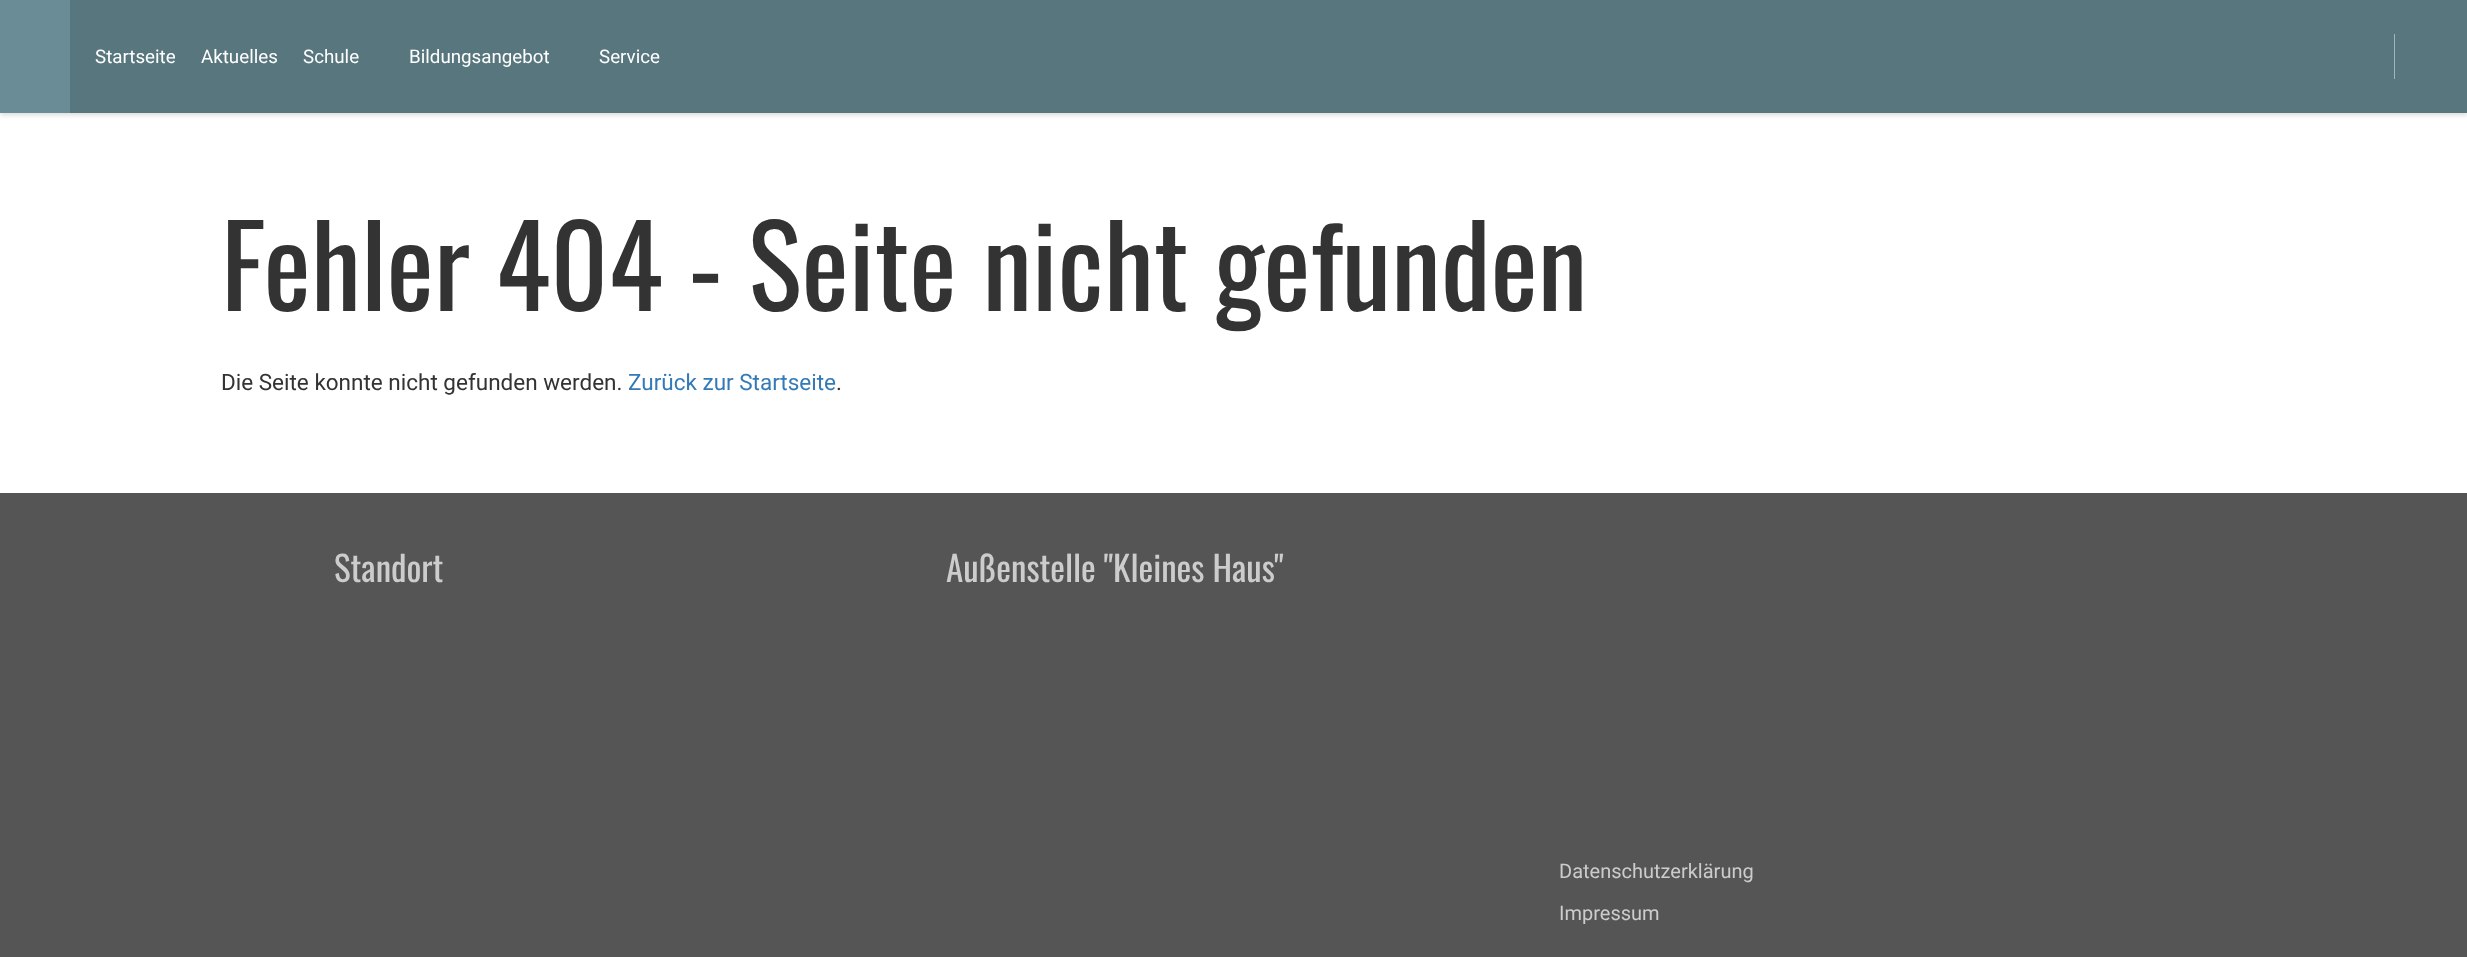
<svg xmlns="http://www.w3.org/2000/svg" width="2467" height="957">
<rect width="100%" height="100%" fill="#fff"/>
<rect y="3" width="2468" height="112" fill="#00000026" filter="blur(2.5px)"/>
<rect x="70" width="2397" height="113" fill="#58767e"/>
<rect width="70" height="113" fill="#698c96"/>
<text x="95" y="63" style="font-family:Roboto;font-size:18.75px;fill:#fff">Startseite</text>
<text x="201" y="63" style="font-family:Roboto;font-size:18.75px;fill:#fff">Aktuelles</text>
<text x="303" y="63" style="font-family:Roboto;font-size:18.75px;fill:#fff">Schule</text>
<text x="409" y="63" style="font-family:Roboto;font-size:18.75px;fill:#fff">Bildungsangebot</text>
<text x="599" y="63" style="font-family:Roboto;font-size:18.75px;fill:#fff">Service</text>
<rect x="2394" y="34" width="1" height="45" fill="#a3b4ba"/>
<text x="221" y="311" style="font-family:Oswald;font-size:112.5px;fill:#333">Fehler 404 - Seite nicht gefunden</text>
<text x="221" y="390" style="font-family:Roboto;font-size:22.5px;fill:#333">Die Seite konnte nicht gefunden werden.</text>
<text x="628" y="390" style="font-family:Roboto;font-size:22.5px;fill:#337ab7">Zurück zur Startseite</text>
<text x="836" y="390" style="font-family:Roboto;font-size:22.5px;fill:#333">.</text>
<rect y="493" width="2467" height="464" fill="#555"/>
<text x="334" y="582" style="font-family:Oswald;font-size:35px;fill:#ccc">Standort</text>
<text x="946" y="582" style="font-family:Oswald;font-size:35px;fill:#ccc">Außenstelle "Kleines Haus"</text>
<text x="1559" y="878" style="font-family:Roboto;font-size:20px;fill:#ccc">Datenschutzerklärung</text>
<text x="1559" y="920" style="font-family:Roboto;font-size:20px;fill:#ccc">Impressum</text>
</svg>
